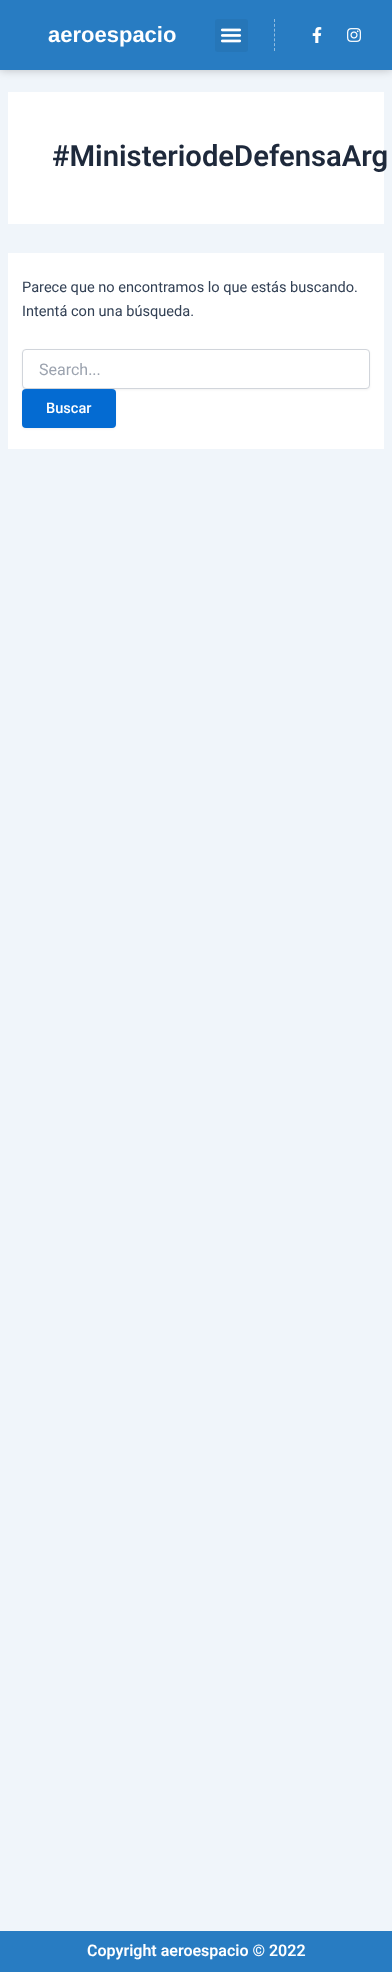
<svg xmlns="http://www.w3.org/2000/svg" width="392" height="1972">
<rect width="100%" height="100%" fill="#f0f5fa"/>
<rect width="392" height="70" fill="#0000003b" filter="blur(5px)"/>
<rect width="392" height="70" fill="#287cc2"/>
<text x="48" y="42" style="font-family:Liberation Sans;font-size:22px;font-weight:bold;fill:#fff">aeroespacio</text>
<rect x="215" y="19" width="33" height="33" rx="3" fill="#2676b8"/>
<image x="220" y="28" width="22" height="15" href="media/1.png"/>
<path d="M274.5 19v32" fill="none" stroke="#91bce0" stroke-dasharray="3 1.83"/>
<image x="312" y="27" width="10" height="16" href="media/2.png"/>
<image x="347" y="28" width="14" height="14" href="media/3.png"/>
<rect x="8" y="92" width="376" height="132" fill="#fff"/>
<text x="52" y="166" style="font-family:Roboto;font-size:29.25px;font-weight:600;fill:#1e293b">#MinisteriodeDefensaArg</text>
<rect x="8" y="253" width="376" height="196" fill="#fff"/>
<text x="22" y="292" style="font-family:Roboto;font-size:14.6px;fill:#334155">Parece que no encontramos lo que estás buscando.</text>
<text x="22" y="316" style="font-family:Roboto;font-size:14.6px;fill:#334155">Intentá con una búsqueda.</text>
<rect x="22" y="350" width="348" height="40" rx="4" fill="#0000000d" filter="blur(1px)"/>
<rect x="22.5" y="349.5" width="347" height="39" rx="3.5" fill="#fff" stroke="#d1d5db"/>
<text x="39" y="375" style="font-family:Roboto;font-size:16px;fill:#9ca3af">Search...</text>
<rect x="22" y="390" width="94" height="39" rx="4" fill="#0000000d" filter="blur(1px)"/>
<rect x="22" y="389" width="94" height="39" rx="4" fill="#046bd2"/>
<text x="46" y="413" style="font-family:Roboto;font-size:14.6px;font-weight:500;fill:#fff">Buscar</text>
<rect y="1931" width="392" height="41" fill="#287cc2"/>
<text x="87" y="1956" style="font-family:Roboto;font-size:16px;font-weight:600;fill:#fff">Copyright aeroespacio © 2022</text>
</svg>
